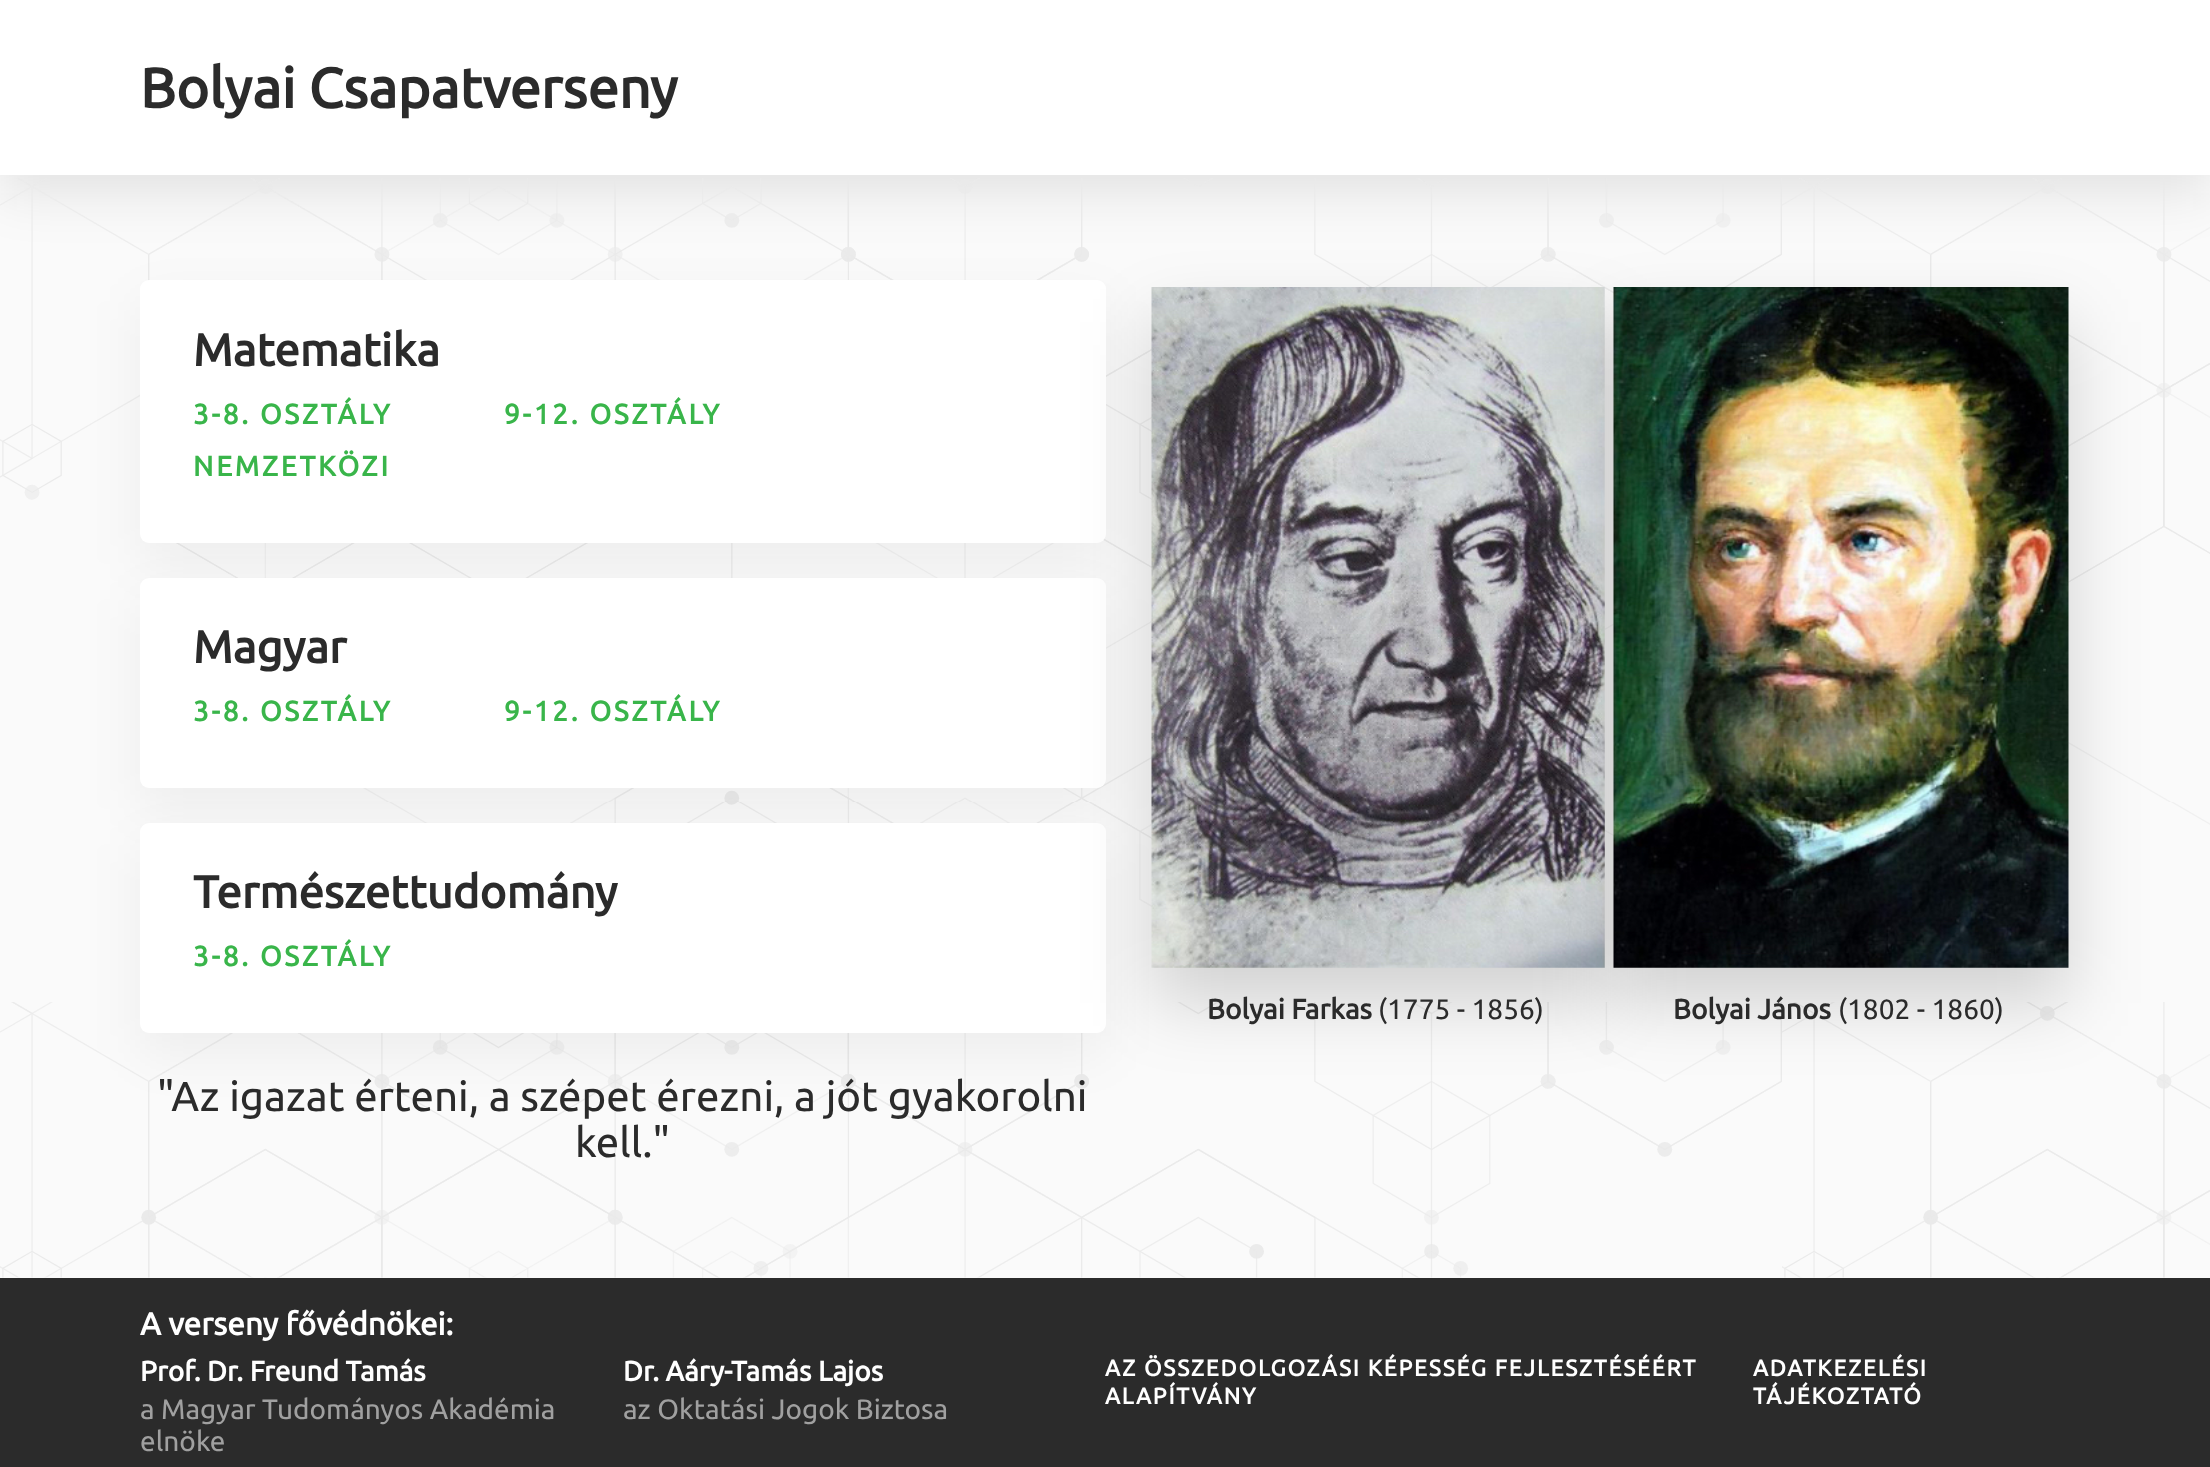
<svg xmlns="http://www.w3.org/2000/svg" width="2210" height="1467">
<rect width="100%" height="100%" fill="#fafafa"/>
<rect y="18" width="2210" height="175" fill="#1010101a" filter="blur(26px)"/>
<rect width="2210" height="175" fill="#fff"/>
<text x="140" y="108" style="font-family:Ubuntu;font-size:56px;font-weight:bold;fill:#2b2b2b">Bolyai Csapatverseny</text>
<image x="0" y="178" width="2210" height="1100" href="media/1.png"/>
<rect x="140" y="301" width="966" height="263" rx="9" fill="#0000000d" filter="blur(26px)"/>
<rect x="140" y="280" width="966" height="263" rx="9" fill="#fff"/>
<text x="193" y="366" style="font-family:Ubuntu;font-size:45.5px;font-weight:bold;fill:#2b2b2b">Matematika</text>
<text x="193" y="424" style="font-family:Ubuntu;font-size:28px;font-weight:bold;letter-spacing:2.75px;fill:#39b54a">3-8. OSZTÁLY</text>
<text x="504" y="424" style="font-family:Ubuntu;font-size:28px;font-weight:bold;letter-spacing:2.75px;fill:#39b54a">9-12. OSZTÁLY</text>
<text x="193" y="476" style="font-family:Ubuntu;font-size:28px;font-weight:bold;letter-spacing:2.75px;fill:#39b54a">NEMZETKÖZI</text>
<rect x="140" y="599" width="966" height="210" rx="9" fill="#0000000d" filter="blur(26px)"/>
<rect x="140" y="578" width="966" height="210" rx="9" fill="#fff"/>
<text x="193" y="663" style="font-family:Ubuntu;font-size:45.5px;font-weight:bold;fill:#2b2b2b">Magyar</text>
<text x="193" y="721" style="font-family:Ubuntu;font-size:28px;font-weight:bold;letter-spacing:2.75px;fill:#39b54a">3-8. OSZTÁLY</text>
<text x="504" y="721" style="font-family:Ubuntu;font-size:28px;font-weight:bold;letter-spacing:2.75px;fill:#39b54a">9-12. OSZTÁLY</text>
<rect x="140" y="844" width="966" height="210" rx="9" fill="#0000000d" filter="blur(26px)"/>
<rect x="140" y="823" width="966" height="210" rx="9" fill="#fff"/>
<text x="193" y="908" style="font-family:Ubuntu;font-size:45.5px;font-weight:bold;fill:#2b2b2b">Természettudomány</text>
<text x="193" y="966" style="font-family:Ubuntu;font-size:28px;font-weight:bold;letter-spacing:2.75px;fill:#39b54a">3-8. OSZTÁLY</text>
<text x="157" y="1111" style="font-family:Ubuntu;font-size:42px;fill:#2b2b2b">"Az igazat érteni, a szépet érezni, a jót gyakorolni</text>
<text x="575" y="1157" style="font-family:Ubuntu;font-size:42px;fill:#2b2b2b">kell."</text>
<rect x="1152" y="322" width="453" height="681" fill="#00000029" filter="blur(35px)"/>
<image x="1151" y="287" width="454" height="681" href="media/2.png"/>
<text x="1207" y="1019" style="font-family:Ubuntu;font-size:28px;font-weight:bold;fill:#2b2b2b">Bolyai Farkas</text>
<text x="1378" y="1019" style="font-family:Ubuntu;font-size:28px;fill:#2b2b2b">(1775 - 1856)</text>
<rect x="1614" y="322" width="455" height="681" fill="#00000029" filter="blur(35px)"/>
<image x="1613" y="287" width="456" height="681" href="media/3.png"/>
<text x="1673" y="1019" style="font-family:Ubuntu;font-size:28px;font-weight:bold;fill:#2b2b2b">Bolyai János</text>
<text x="1838" y="1019" style="font-family:Ubuntu;font-size:28px;fill:#2b2b2b">(1802 - 1860)</text>
<rect y="1278" width="2210" height="189" fill="#2b2b2b"/>
<text x="140" y="1335" style="font-family:Ubuntu;font-size:31.5px;font-weight:bold;fill:#fff">A verseny fővédnökei:</text>
<text x="140" y="1381" style="font-family:Ubuntu;font-size:28px;font-weight:bold;fill:#fff">Prof. Dr. Freund Tamás</text>
<text x="140" y="1419" style="font-family:Ubuntu;font-size:28px;fill:#a0a0a0">a Magyar Tudományos Akadémia</text>
<text x="140" y="1451" style="font-family:Ubuntu;font-size:28px;fill:#a0a0a0">elnöke</text>
<text x="623" y="1381" style="font-family:Ubuntu;font-size:28px;font-weight:bold;fill:#fff">Dr. Aáry-Tamás Lajos</text>
<text x="623" y="1419" style="font-family:Ubuntu;font-size:28px;fill:#a0a0a0">az Oktatási Jogok Biztosa</text>
<text x="1105" y="1376" style="font-family:Ubuntu;font-size:22.75px;font-weight:bold;letter-spacing:1.75px;fill:#fff">AZ ÖSSZEDOLGOZÁSI KÉPESSÉG FEJLESZTÉSÉÉRT</text>
<text x="1105" y="1404" style="font-family:Ubuntu;font-size:22.75px;font-weight:bold;letter-spacing:1.75px;fill:#fff">ALAPÍTVÁNY</text>
<text x="1753" y="1376" style="font-family:Ubuntu;font-size:22.75px;font-weight:bold;letter-spacing:1.75px;fill:#fff">ADATKEZELÉSI</text>
<text x="1753" y="1404" style="font-family:Ubuntu;font-size:22.75px;font-weight:bold;letter-spacing:1.75px;fill:#fff">TÁJÉKOZTATÓ</text>
</svg>
